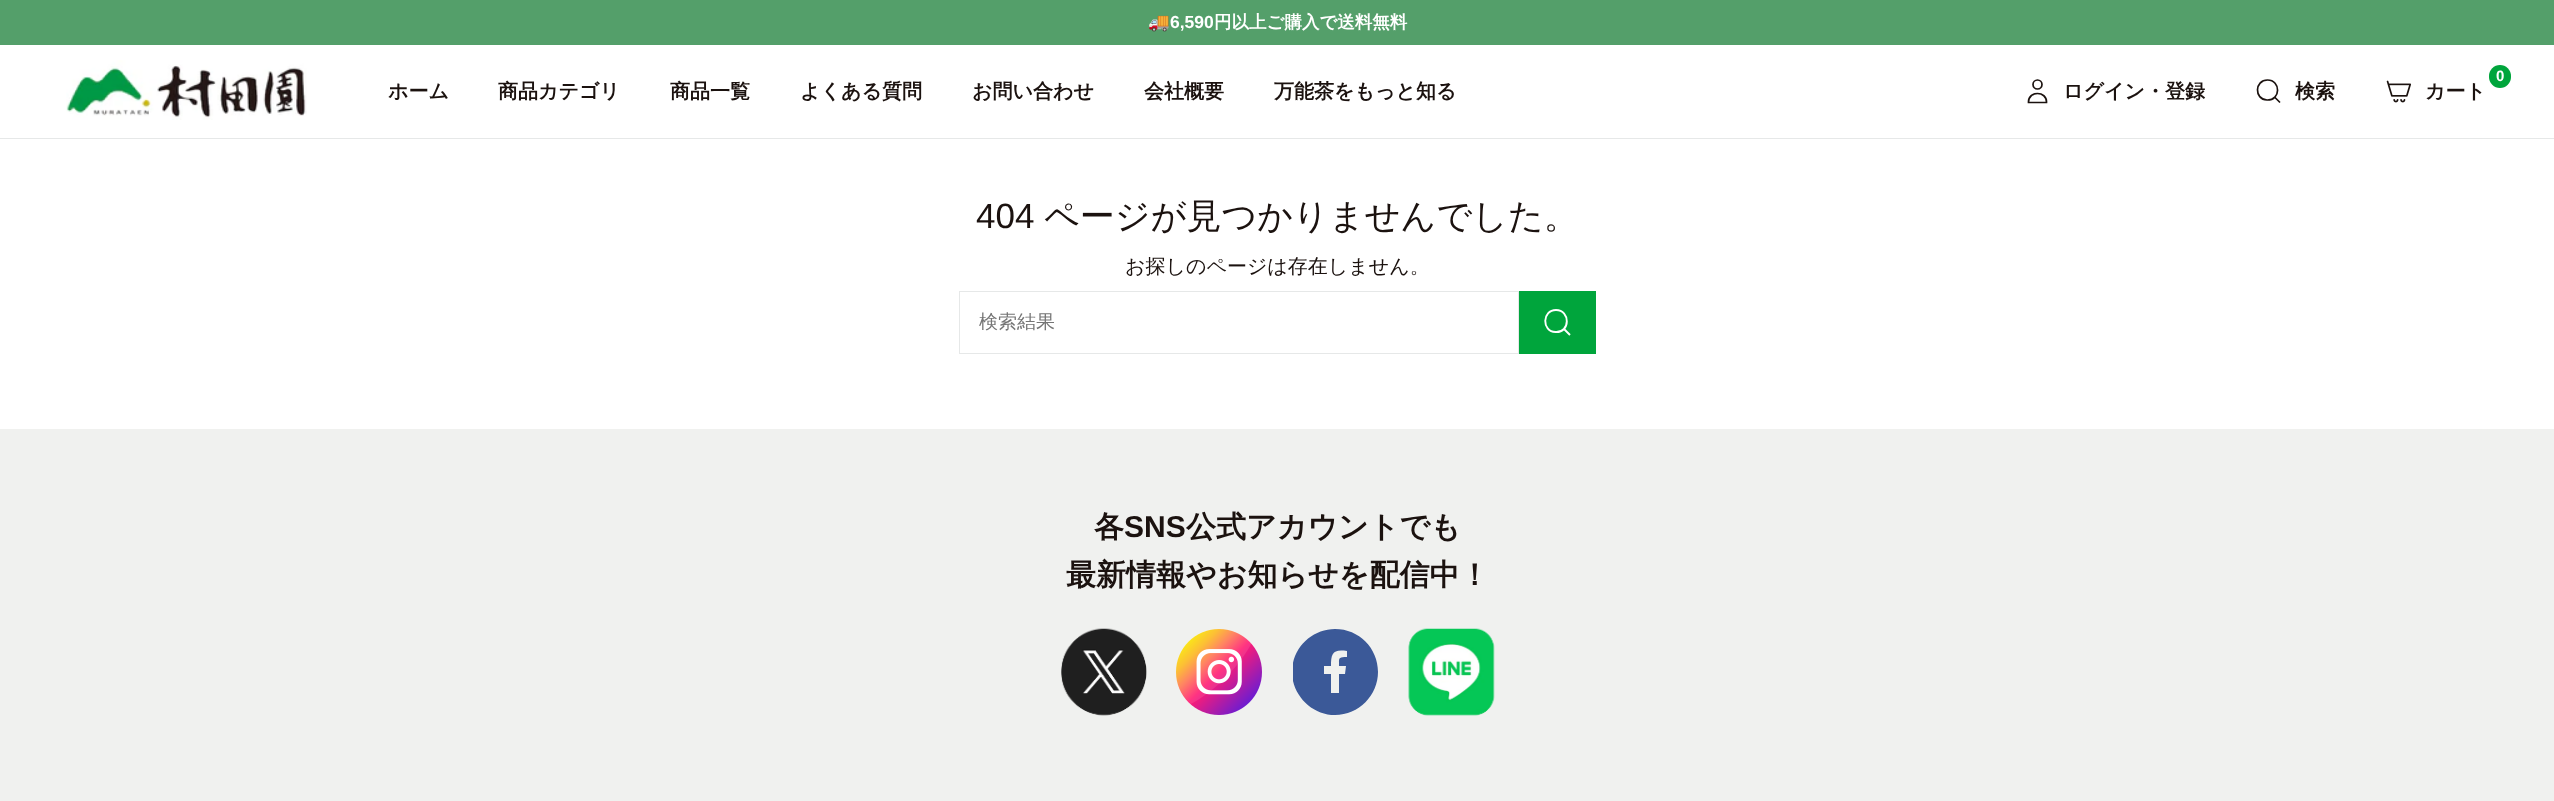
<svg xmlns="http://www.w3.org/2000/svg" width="2554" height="801">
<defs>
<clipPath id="clip1"><rect x="1293" y="629" width="86" height="86"/></clipPath>
</defs>
<rect width="100%" height="100%" fill="#fff"/>
<rect width="2554" height="45" fill="#549f6a"/>
<text x="1148" y="28" style="font-family:Noto Color Emoji;font-size:17.5px;font-weight:bold;fill:#fff">🚚</text>
<text x="1170" y="28" style="font-family:Liberation Sans;font-size:17.5px;font-weight:bold;fill:#fff">6,590</text>
<text x="1214" y="28" style="font-family:WenQuanYi Zen Hei;font-size:17.5px;font-weight:bold;fill:#fff">円以上ご購入で送料無料</text>
<image x="66" y="60" width="241" height="60" href="media/1.png"/>
<text x="388" y="98" style="font-family:WenQuanYi Zen Hei;font-size:20px;font-weight:bold;fill:#1b120f">ホーム</text>
<text x="498" y="98" style="font-family:WenQuanYi Zen Hei;font-size:20px;font-weight:bold;fill:#1b120f">商品カテゴリ</text>
<text x="670" y="98" style="font-family:WenQuanYi Zen Hei;font-size:20px;font-weight:bold;fill:#1b120f">商品一覧</text>
<text x="800" y="98" style="font-family:WenQuanYi Zen Hei;font-size:20px;font-weight:bold;fill:#1b120f">よくある質問</text>
<text x="972" y="98" style="font-family:WenQuanYi Zen Hei;font-size:20px;font-weight:bold;fill:#1b120f">お問い合わせ</text>
<text x="1144" y="98" style="font-family:WenQuanYi Zen Hei;font-size:20px;font-weight:bold;fill:#1b120f">会社概要</text>
<text x="1274" y="98" style="font-family:WenQuanYi Zen Hei;font-size:20px;font-weight:bold;fill:#1b120f">万能茶をもっと知る</text>
<circle cx="2037.5" cy="84.5" r="4.5" fill="none" stroke="#1b120f" stroke-width="1.7"/>
<path d="M2046.5 102.5c.5-12-18.5-12-18 0z" fill="none" stroke="#1b120f" stroke-width="1.7"/>
<text x="2063" y="98" style="font-family:WenQuanYi Zen Hei;font-size:20px;font-weight:bold;fill:#1b120f">ログイン・登録</text>
<path d="M2267.5 80c13.5 0 13.5 20.5-.5 20c-13-.5-12.5-20 .5-20zm7 17l5.5 5.5" fill="none" stroke="#1b120f" stroke-width="1.7"/>
<text x="2295" y="98" style="font-family:WenQuanYi Zen Hei;font-size:20px;font-weight:bold;fill:#1b120f">検索</text>
<rect x="2489" y="65" width="22" height="23" rx="11" fill="#00a53c"/>
<text x="2496" y="81" style="font-family:Liberation Sans;font-size:15px;font-weight:bold;fill:#fff">0</text>
<image x="2386" y="80" width="25" height="23" href="media/2.png"/>
<text x="2425" y="98" style="font-family:WenQuanYi Zen Hei;font-size:20px;font-weight:bold;fill:#1b120f">カート</text>
<rect y="138" width="2554" height="1" fill="#e6e8e8"/>
<text x="976" y="228" style="font-family:Liberation Sans;font-size:35px;fill:#1b120f">404</text>
<text x="1044" y="228" style="font-family:WenQuanYi Zen Hei;font-size:35px;font-weight:500;fill:#1b120f">ページが見つかりませんでした。</text>
<text x="1125" y="273" style="font-family:WenQuanYi Zen Hei;font-size:20px;font-weight:500;fill:#1b120f">お探しのページは存在しません。</text>
<rect x="959.5" y="291.5" width="559" height="62" fill="none" stroke="#e6e8e8"/>
<text x="979" y="328" style="font-family:WenQuanYi Zen Hei;font-size:19px;font-weight:500;fill:#757575">検索結果</text>
<rect x="1519" y="291" width="77" height="63" fill="#00a53c"/>
<path d="M1556 310c14.5 0 14.5 23-.5 22c-14-.5-13.5-22 .5-22zm8 19l6 6" fill="none" stroke="#fff" stroke-width="1.9"/>
<rect y="429" width="2554" height="372" fill="#f0f1ef"/>
<text x="1094" y="537" style="font-family:WenQuanYi Zen Hei;font-size:30px;font-weight:bold;fill:#1b120f">各</text>
<text x="1124" y="537" style="font-family:Liberation Sans;font-size:30px;font-weight:bold;fill:#1b120f">SNS</text>
<text x="1186" y="537" style="font-family:WenQuanYi Zen Hei;font-size:30px;font-weight:bold;fill:#1b120f">公式アカウントでも</text>
<text x="1066" y="585" style="font-family:WenQuanYi Zen Hei;font-size:30px;font-weight:bold;fill:#1b120f">最新情報やお知らせを配信中！</text>
<image x="1061" y="628" width="86" height="88" href="media/3.png"/>
<image x="1176" y="629" width="86" height="86" href="media/4.png"/>
<g clip-path="url(#clip1)">
<path d="M1347 657c-9 0-8 1-8 9h7l-1 8h-6v19h-8v-19h-7v-8h7c0-13 2-17 16-15zm-12-28c-23 0-43 19-43 43c0 23 20 43 43 43c24 0 43-20 43-43c0-24-19-43-43-43z" fill="#3b5998" fill-rule="evenodd"/>
</g>
<image x="1408" y="628" width="87" height="88" href="media/5.png"/>
</svg>
